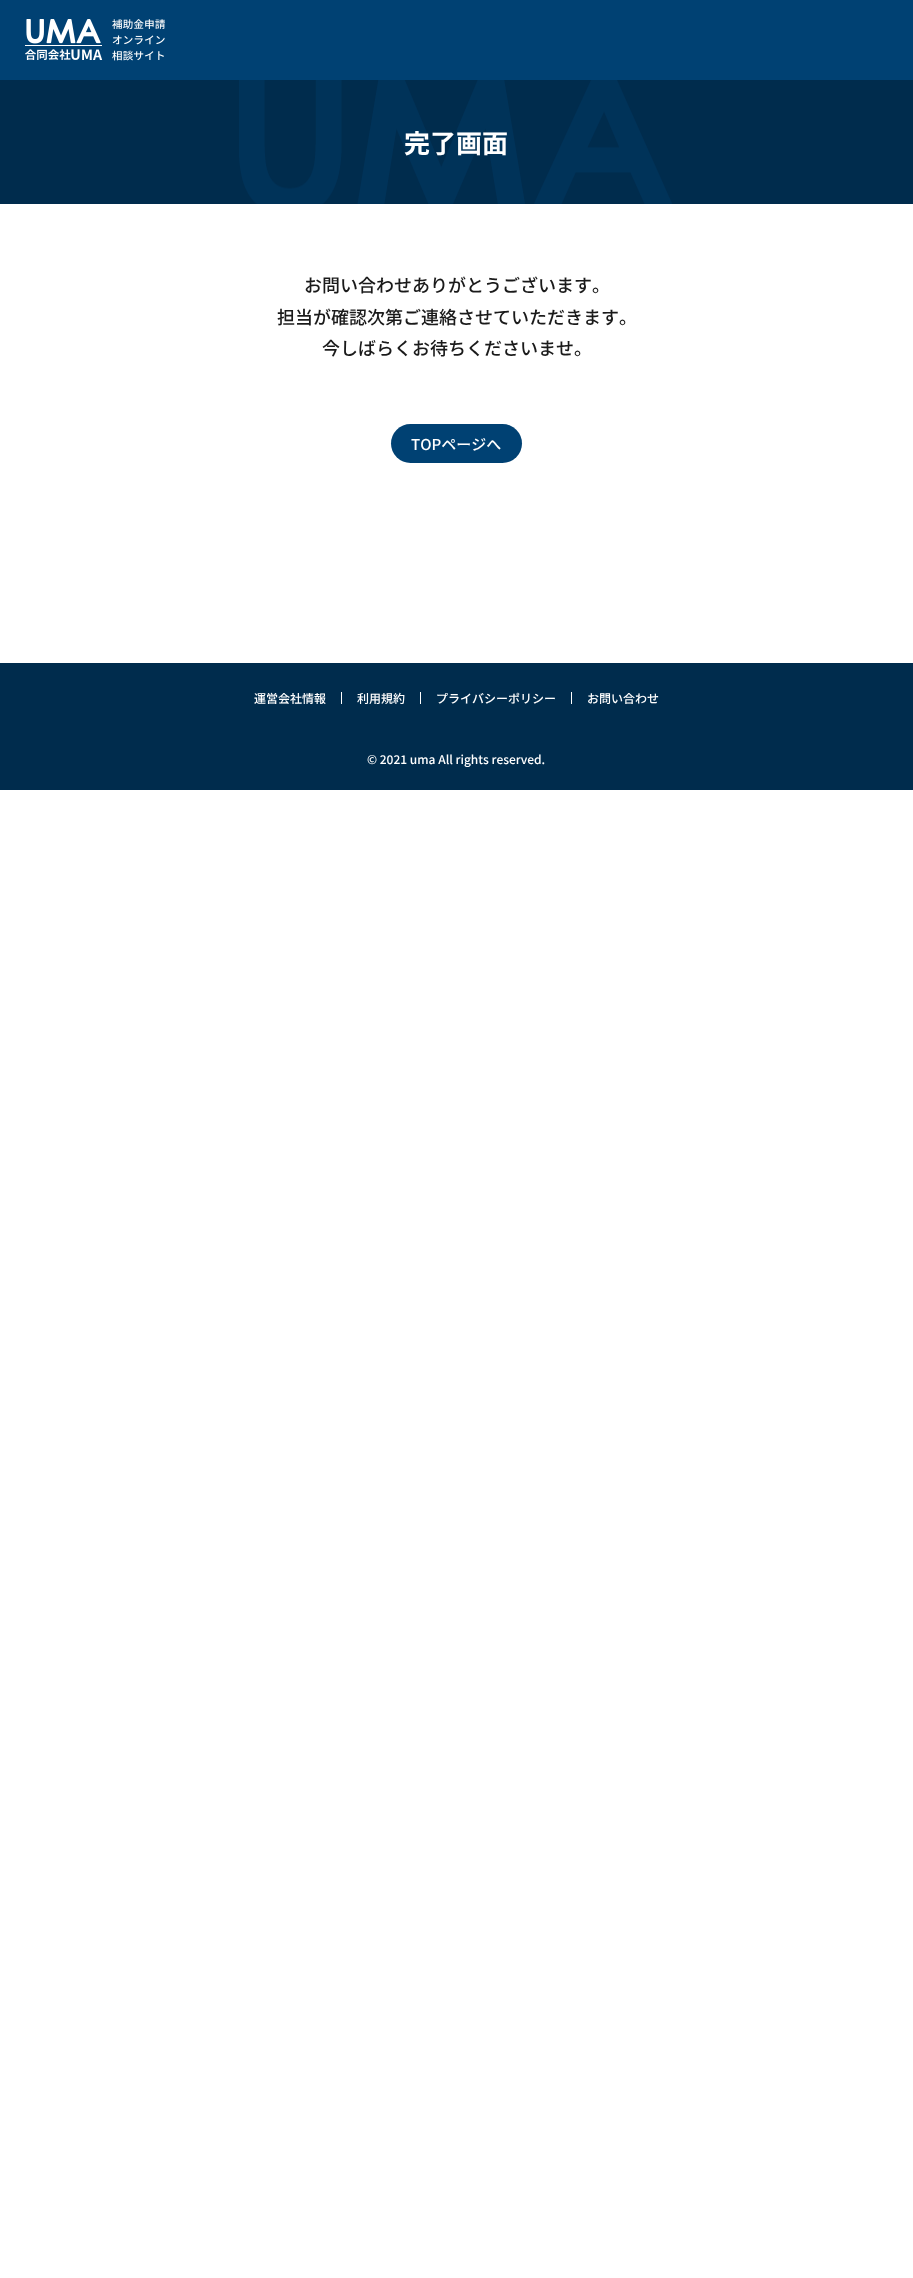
<svg xmlns="http://www.w3.org/2000/svg" width="913" height="2278">
<style>*{font-kerning:none!important;font-variant-ligatures:none!important}</style>
<rect width="100%" height="100%" fill="#fff"/>
<rect width="913" height="80" fill="#004173"/>
<image x="25" y="19" width="140" height="42" href="media/1.png"/>
<rect y="80" width="913" height="124" fill="#002c4d"/>
<image x="239" y="80" width="433" height="124" href="media/2.png"/>
<text x="404" y="153" style="font-family:Noto Sans JP;font-size:26px;font-weight:bold;fill:#fff">完了画面</text>
<text x="304" y="292" style="font-family:Noto Sans JP;font-size:18px;font-weight:500;fill:#1a1a1a">お問い合わせありがとうございます。</text>
<text x="277" y="324" style="font-family:Noto Sans JP;font-size:18px;font-weight:500;fill:#1a1a1a">担当が確認次第ご連絡させていただきます。</text>
<text x="322" y="355" style="font-family:Noto Sans JP;font-size:18px;font-weight:500;fill:#1a1a1a">今しばらくお待ちくださいませ。</text>
<rect x="391" y="424" width="131" height="39" rx="19.5" fill="#004173"/>
<text x="411" y="450" style="font-family:Noto Sans JP;font-size:15px;font-weight:500;fill:#fff">TOPページへ</text>
<rect y="663" width="913" height="127" fill="#002c4d"/>
<text x="254" y="703" style="font-family:Noto Sans JP;font-size:12px;font-weight:500;fill:#fff">運営会社情報</text>
<rect x="341" y="692" width="1" height="12" fill="#fff"/>
<text x="357" y="703" style="font-family:Noto Sans JP;font-size:12px;font-weight:500;fill:#fff">利用規約</text>
<rect x="420" y="692" width="1" height="12" fill="#fff"/>
<text x="436" y="703" style="font-family:Noto Sans JP;font-size:12px;font-weight:500;fill:#fff">プライバシーポリシー</text>
<rect x="571" y="692" width="1" height="12" fill="#fff"/>
<text x="587" y="703" style="font-family:Noto Sans JP;font-size:12px;font-weight:500;fill:#fff">お問い合わせ</text>
<text x="367" y="764" style="font-family:Noto Sans JP;font-size:12px;font-weight:500;fill:#fff">© 2021 uma All rights reserved.</text>
</svg>
